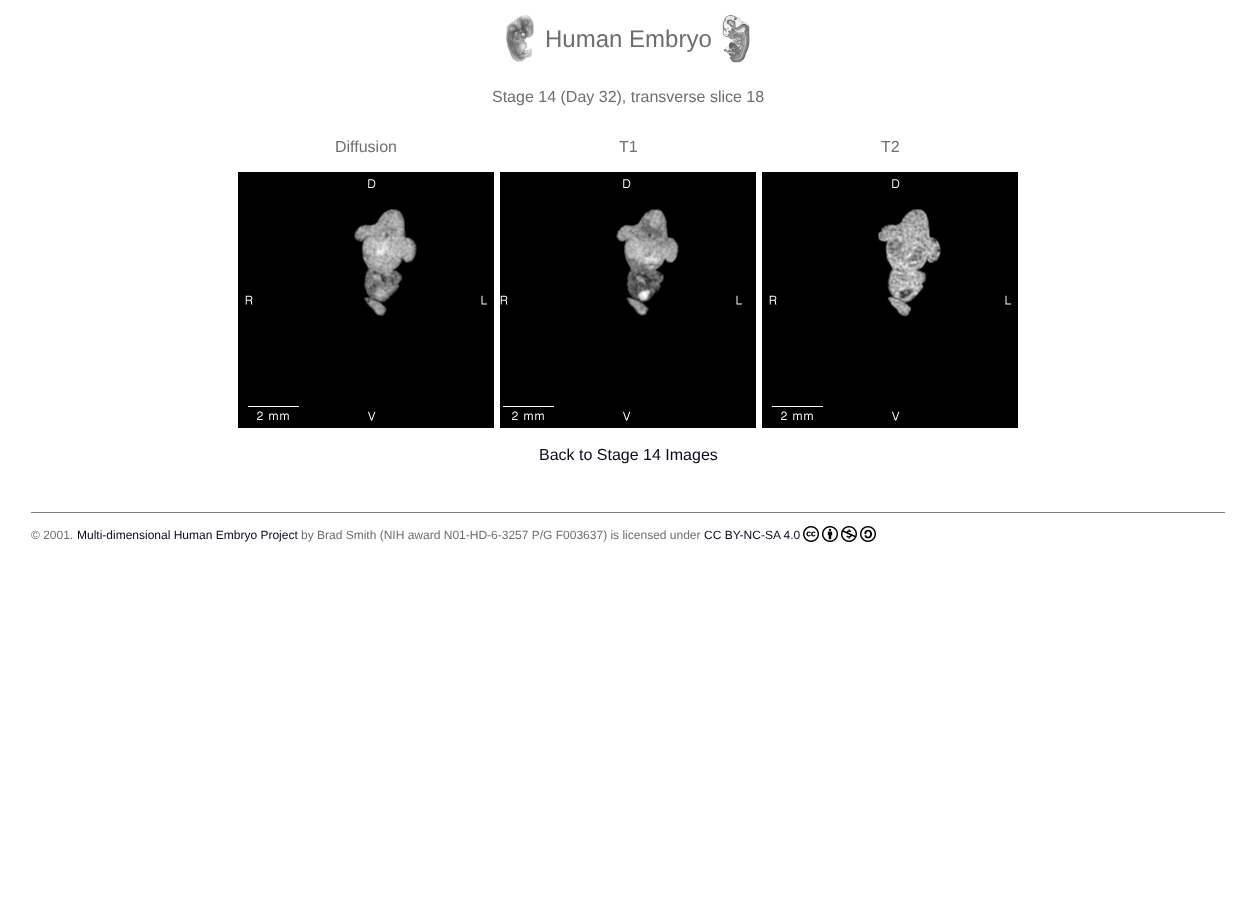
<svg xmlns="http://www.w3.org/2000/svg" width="1256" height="898">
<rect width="100%" height="100%" fill="#fff"/>
<image x="506" y="15" width="29" height="47" href="media/1.png"/>
<text x="545" y="47" style="font-family:Liberation Sans;font-size:24px;fill:#6e6e6e">Human Embryo</text>
<image x="722" y="15" width="28" height="48" href="media/2.png"/>
<text x="492" y="102" style="font-family:Liberation Sans;font-size:16px;fill:#6e6e6e">Stage 14 (Day 32), transverse slice 18</text>
<text x="335" y="152" style="font-family:Liberation Sans;font-size:16px;fill:#6e6e6e">Diffusion</text>
<image x="238" y="172" width="256" height="256" href="media/3.png"/>
<text x="619" y="152" style="font-family:Liberation Sans;font-size:16px;fill:#6e6e6e">T1</text>
<image x="500" y="172" width="256" height="256" href="media/4.png"/>
<text x="881" y="152" style="font-family:Liberation Sans;font-size:16px;fill:#6e6e6e">T2</text>
<image x="762" y="172" width="256" height="256" href="media/5.png"/>
<text x="539" y="460" style="font-family:Liberation Sans;font-size:16px;fill:#0a0a1e">Back to Stage 14 Images</text>
<rect x="31" y="512" width="1194" height="1" fill="#808080"/>
<text x="31" y="539" style="font-family:Liberation Sans;font-size:12px;fill:#6e6e6e">© 2001.</text>
<text x="77" y="539" style="font-family:Liberation Sans;font-size:12px;fill:#0a0a1e">Multi-dimensional Human Embryo Project</text>
<text x="301" y="539" style="font-family:Liberation Sans;font-size:12px;fill:#6e6e6e">by Brad Smith (NIH award N01-HD-6-3257 P/G F003637) is licensed under</text>
<text x="704" y="539" style="font-family:Liberation Sans;font-size:12px;fill:#0a0a1e">CC BY-NC-SA 4.0</text>
<image x="803" y="526" width="16" height="16" href="media/6.png"/>
<image x="822" y="526" width="16" height="16" href="media/7.png"/>
<image x="841" y="526" width="16" height="16" href="media/8.png"/>
<image x="860" y="526" width="16" height="16" href="media/9.png"/>
</svg>
